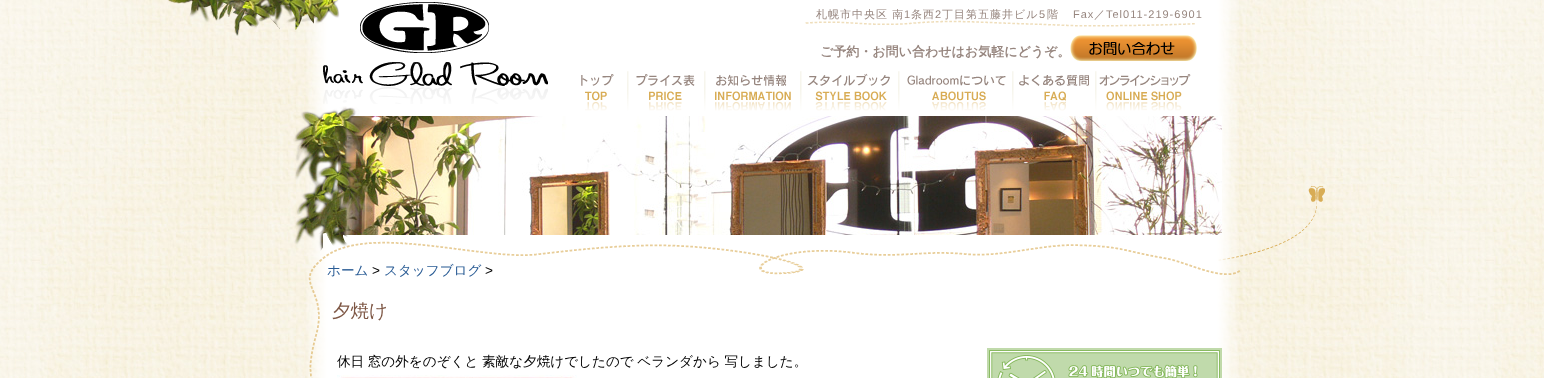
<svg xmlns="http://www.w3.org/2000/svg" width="1544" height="378">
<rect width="100%" height="100%" fill="#fff"/>
<image x="0" y="0" width="1544" height="378" href="media/1.png"/>
<image x="1216" y="186" width="109" height="76" href="media/2.png"/>
<image x="306" y="0" width="933" height="378" href="media/3.png"/>
<image x="168" y="0" width="172" height="36" href="media/4.png"/>
<image x="323" y="2" width="225" height="102" href="media/5.png"/>
<image x="805" y="20" width="390" height="7" href="media/6.png"/>
<text x="816" y="18" style="font-family:WenQuanYi Zen Hei;font-size:11px;font-weight:500;letter-spacing:1px;fill:#97867f">札幌市中央区 南</text>
<text x="904" y="18" style="font-family:Liberation Sans;font-size:11px;letter-spacing:1px;fill:#97867f">1</text>
<text x="911" y="18" style="font-family:WenQuanYi Zen Hei;font-size:11px;font-weight:500;letter-spacing:1px;fill:#97867f">条西</text>
<text x="935" y="18" style="font-family:Liberation Sans;font-size:11px;letter-spacing:1px;fill:#97867f">2</text>
<text x="942" y="18" style="font-family:WenQuanYi Zen Hei;font-size:11px;font-weight:500;letter-spacing:1px;fill:#97867f">丁目第五藤井ビル</text>
<text x="1039" y="18" style="font-family:Liberation Sans;font-size:11px;letter-spacing:1px;fill:#97867f">5</text>
<text x="1047" y="18" style="font-family:WenQuanYi Zen Hei;font-size:11px;font-weight:500;letter-spacing:1px;fill:#97867f">階</text>
<text x="1073" y="18" style="font-family:Liberation Sans;font-size:11px;letter-spacing:1px;fill:#97867f">Fax</text>
<text x="1094" y="18" style="font-family:WenQuanYi Zen Hei;font-size:11px;font-weight:500;letter-spacing:1px;fill:#97867f">／</text>
<text x="1106" y="18" style="font-family:Liberation Sans;font-size:11px;letter-spacing:1px;fill:#97867f">Tel011-219-6901</text>
<text x="820" y="56" style="font-family:WenQuanYi Zen Hei;font-size:13px;font-weight:bold;fill:#97867f">ご予約・お問い合わせはお気軽にどうぞ。</text>
<image x="1070" y="35" width="127" height="26" href="media/7.png"/>
<image x="581" y="74" width="33" height="37" href="media/8.png"/>
<image x="627" y="71" width="68" height="40" href="media/9.png"/>
<image x="704" y="71" width="87" height="40" href="media/10.png"/>
<image x="800" y="71" width="90" height="40" href="media/11.png"/>
<image x="898" y="71" width="108" height="40" href="media/12.png"/>
<image x="1012" y="71" width="77" height="40" href="media/13.png"/>
<image x="1095" y="71" width="96" height="40" href="media/14.png"/>
<image x="338" y="116" width="884" height="119" href="media/15.png"/>
<image x="308" y="241" width="933" height="137" href="media/17.png"/>
<image x="293" y="106" width="68" height="145" href="media/16.png"/>
<text x="327" y="275" style="font-family:WenQuanYi Zen Hei;font-size:13.6px;font-weight:500;fill:#2a5c95">ホーム</text>
<text x="372" y="275" style="font-family:Liberation Sans;font-size:13.6px;fill:#000">&gt;</text>
<text x="384" y="275" style="font-family:WenQuanYi Zen Hei;font-size:13.6px;font-weight:500;fill:#2a5c95">スタッフブログ</text>
<text x="485" y="275" style="font-family:Liberation Sans;font-size:13.6px;fill:#000">&gt;</text>
<text x="332" y="317" style="font-family:WenQuanYi Zen Hei;font-size:18.5px;font-weight:500;fill:#7e5745">夕焼け</text>
<text x="337" y="366" word-spacing="-0.5" style="font-family:WenQuanYi Zen Hei;font-size:13.6px;font-weight:500;fill:#000">休日 窓の外をのぞくと 素敵な夕焼けでしたので ベランダから 写しました。</text>
<image x="337" y="375" width="240" height="3" href="media/18.png"/>
<image x="987" y="348" width="235" height="30" href="media/19.png"/>
</svg>
